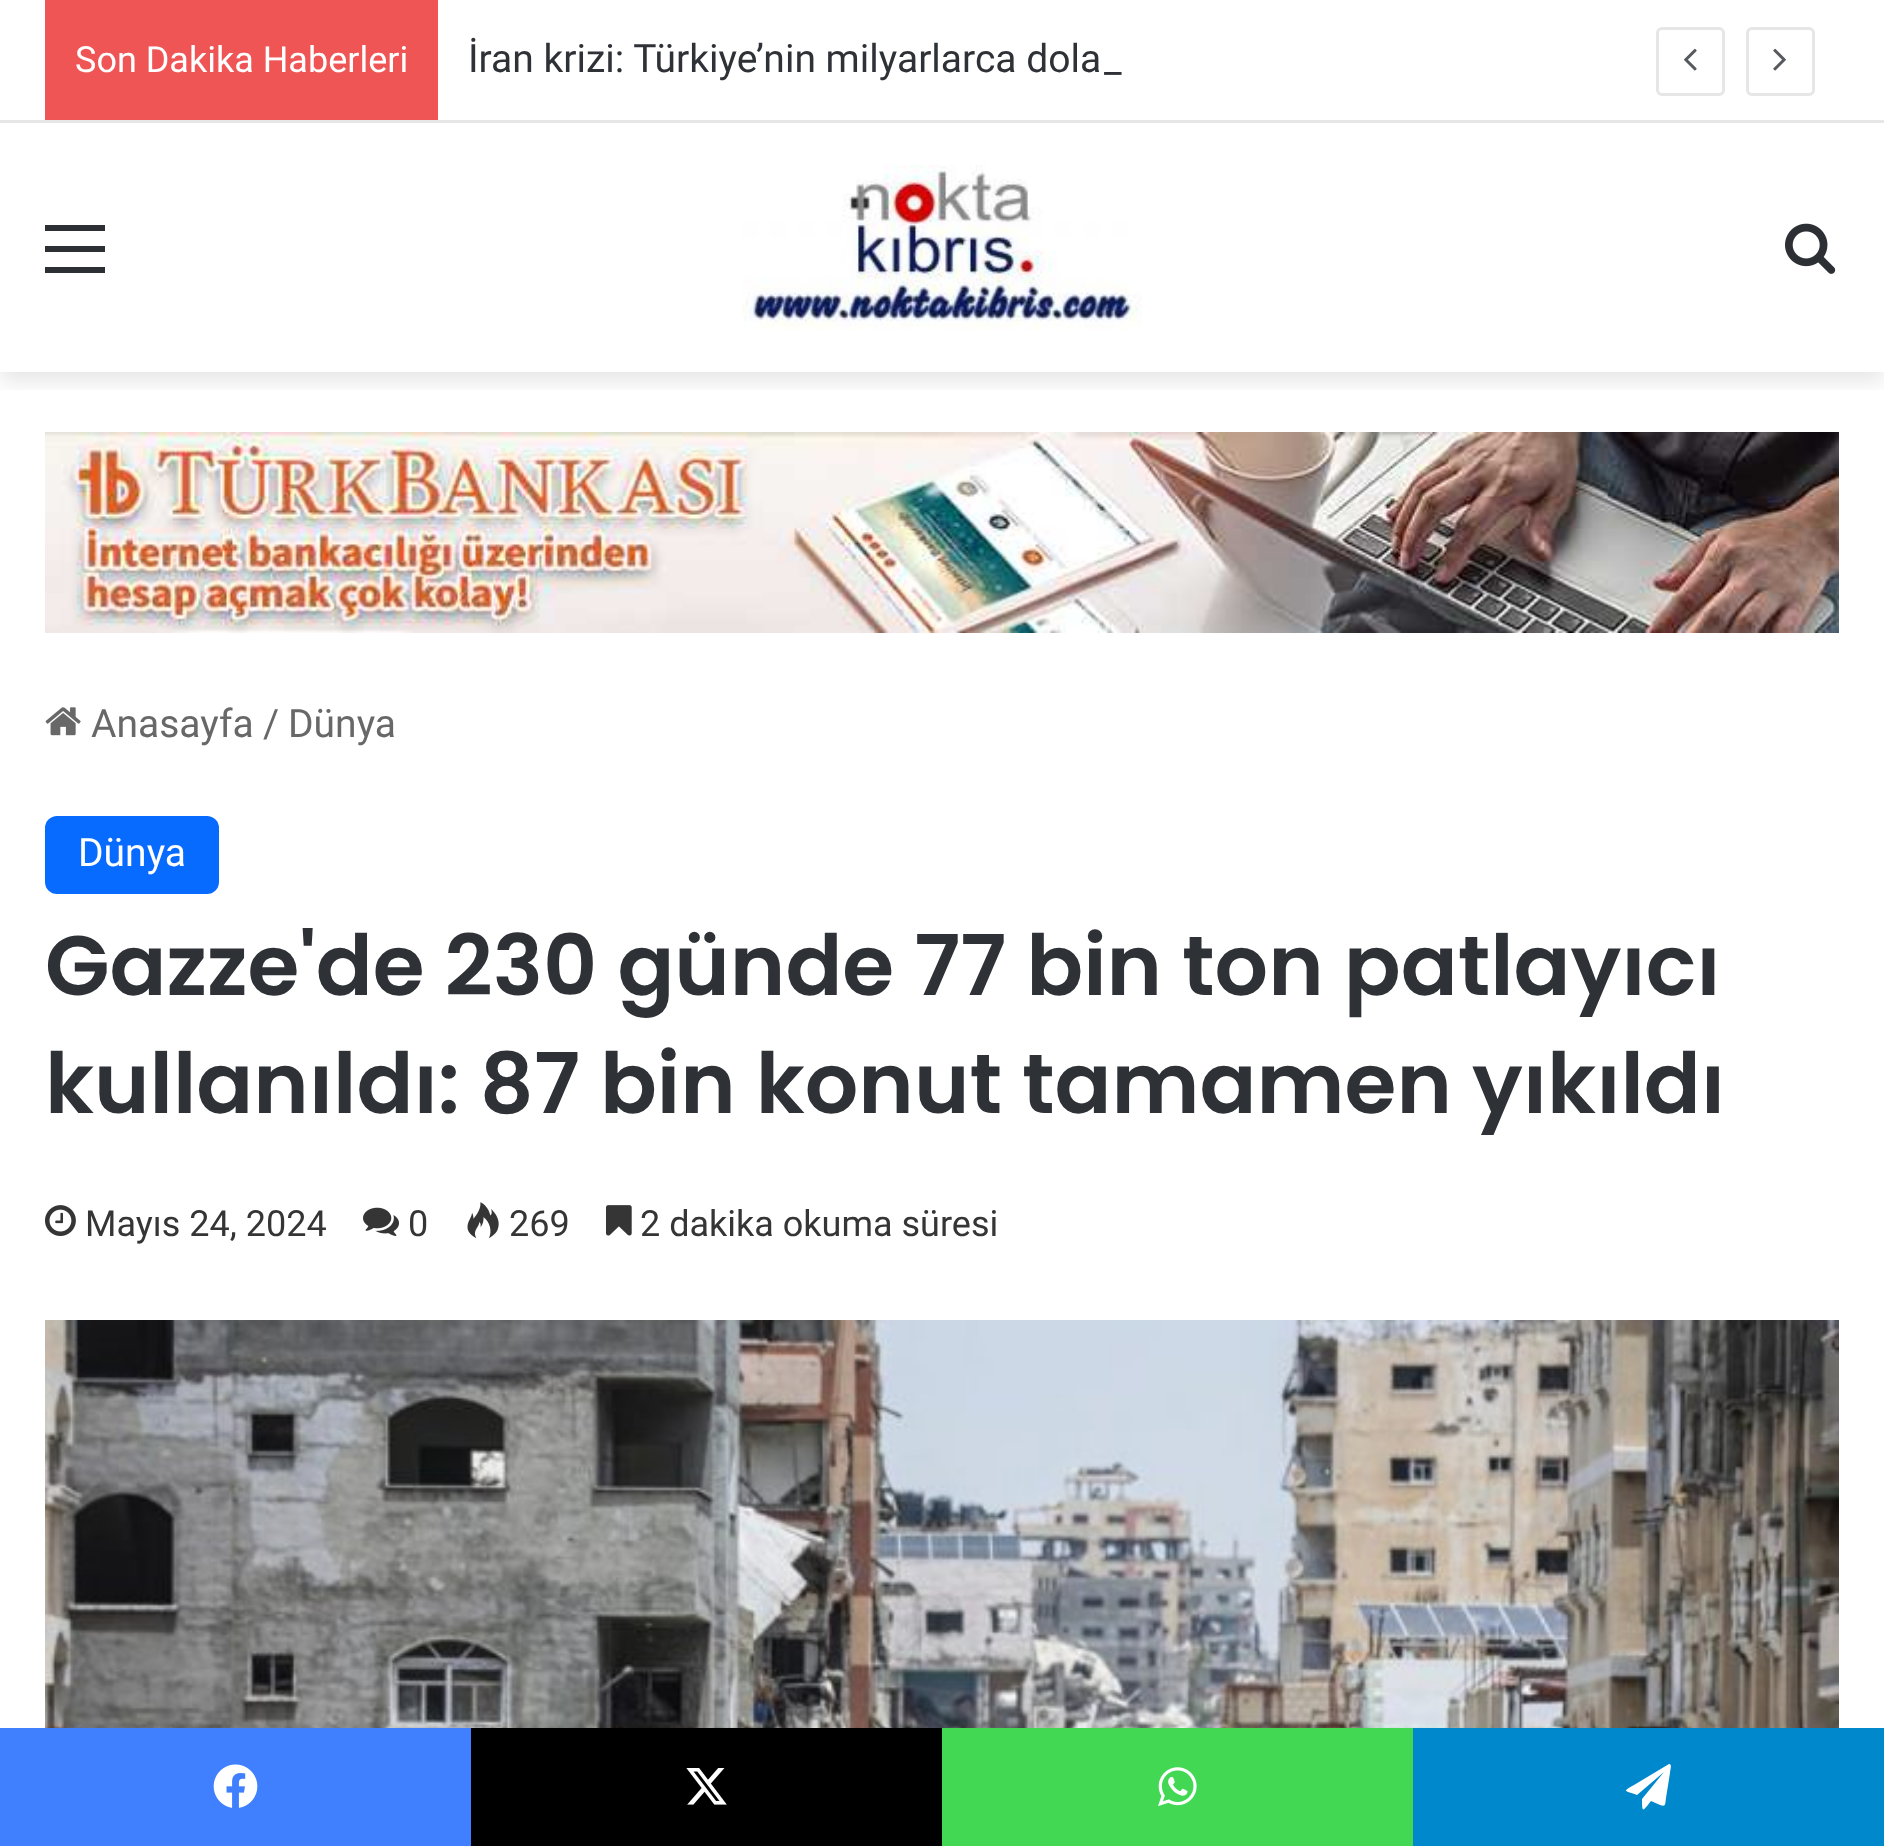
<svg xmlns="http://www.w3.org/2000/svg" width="1884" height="1846">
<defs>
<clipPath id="clip1"><rect x="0" y="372" width="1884" height="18"/></clipPath>
</defs>
<rect width="100%" height="100%" fill="#fff"/>
<g clip-path="url(#clip1)">
<rect y="132" width="1884" height="249" fill="#0000001a" filter="blur(10.5px)"/>
</g>
<rect x="11" y="119" width="1862" height="1" fill="#fff"/>
<rect y="120" width="1884" height="3" fill="#e6e6e6"/>
<rect x="45" width="393" height="120" fill="#f05555"/>
<text x="75" y="72" style="font-family:Roboto;font-size:36px;fill:#fff">Son Dakika Haberleri</text>
<text x="468" y="72" style="font-family:Roboto;font-size:39px;fill:#2e3136">İran krizi: Türkiye’nin milyarlarca dola</text>
<text x="1104" y="72" style="font-family:Roboto;font-size:39px;fill:#2e3136">_</text>
<rect x="1657.5" y="28.5" width="66" height="66" rx="4.5" fill="none" stroke="#e6e6e6" stroke-width="3"/>
<image x="1684" y="48" width="13" height="23" href="media/1.png"/>
<rect x="1747.5" y="28.5" width="66" height="66" rx="4.5" fill="none" stroke="#e6e6e6" stroke-width="3"/>
<image x="1773" y="48" width="13" height="23" href="media/2.png"/>
<rect x="45" y="246" width="60" height="6" fill="#2c2f34"/>
<rect x="45" y="225" width="60" height="6" fill="#2c2f34"/>
<rect x="45" y="267" width="60" height="6" fill="#2c2f34"/>
<image x="742" y="165" width="400" height="165" href="media/3.png"/>
<image x="1785" y="223" width="51" height="51" href="media/4.png"/>
<image x="45" y="432" width="1794" height="201" href="media/5.png"/>
<image x="45" y="707" width="36" height="29" href="media/6.png"/>
<text x="91" y="737" style="font-family:Roboto;font-size:39px;fill:#686868">Anasayfa</text>
<text x="263" y="737" style="font-family:Roboto;font-size:39px;fill:#686868">/</text>
<text x="288" y="737" style="font-family:Roboto;font-size:39px;fill:#686868">Dünya</text>
<rect x="45" y="816" width="174" height="78" rx="12" fill="#086bff"/>
<text x="78" y="866" style="font-family:Roboto;font-size:39px;fill:#fff">Dünya</text>
<text x="45" y="995" style="font-family:Poppins;font-size:84px;font-weight:600;fill:#2e3136">Gazze'de 230 günde 77 bin ton patlayıcı</text>
<text x="45" y="1113" style="font-family:Poppins;font-size:84px;font-weight:600;fill:#2e3136">kullanıldı: 87 bin konut tamamen yıkıldı</text>
<image x="45" y="1205" width="31" height="31" href="media/7.png"/>
<text x="85" y="1236" style="font-family:Roboto;font-size:36px;fill:#353535">Mayıs 24, 2024</text>
<image x="363" y="1207" width="36" height="29" href="media/8.png"/>
<text x="408" y="1236" style="font-family:Roboto;font-size:36px;fill:#353535">0</text>
<image x="467" y="1202" width="32" height="37" href="media/9.png"/>
<text x="509" y="1236" style="font-family:Roboto;font-size:36px;fill:#353535">269</text>
<image x="606" y="1205" width="26" height="31" href="media/10.png"/>
<text x="640" y="1236" style="font-family:Roboto;font-size:36px;fill:#353535">2 dakika okuma süresi</text>
<image x="45" y="1320" width="1794" height="408" href="media/11.png"/>
<rect y="1728" width="471" height="118" fill="#4080ff"/>
<image x="213" y="1764" width="45" height="44" href="media/12.png"/>
<rect x="471" y="1728" width="471" height="118" fill="#000"/>
<image x="686" y="1768" width="41" height="37" href="media/13.png"/>
<rect x="942" y="1728" width="471" height="118" fill="#43d854"/>
<image x="1158" y="1767" width="39" height="40" href="media/14.png"/>
<rect x="1413" y="1728" width="471" height="118" fill="#08c"/>
<path d="M1670 1764c2 2 0 6 0 9l-4 25c-1 7 0 9-6 7l-9-4c-8 10-9 13-9-2l22-27l-27 23c-13-5-15-3-3-10l35-21z" fill="#fff"/>
</svg>
